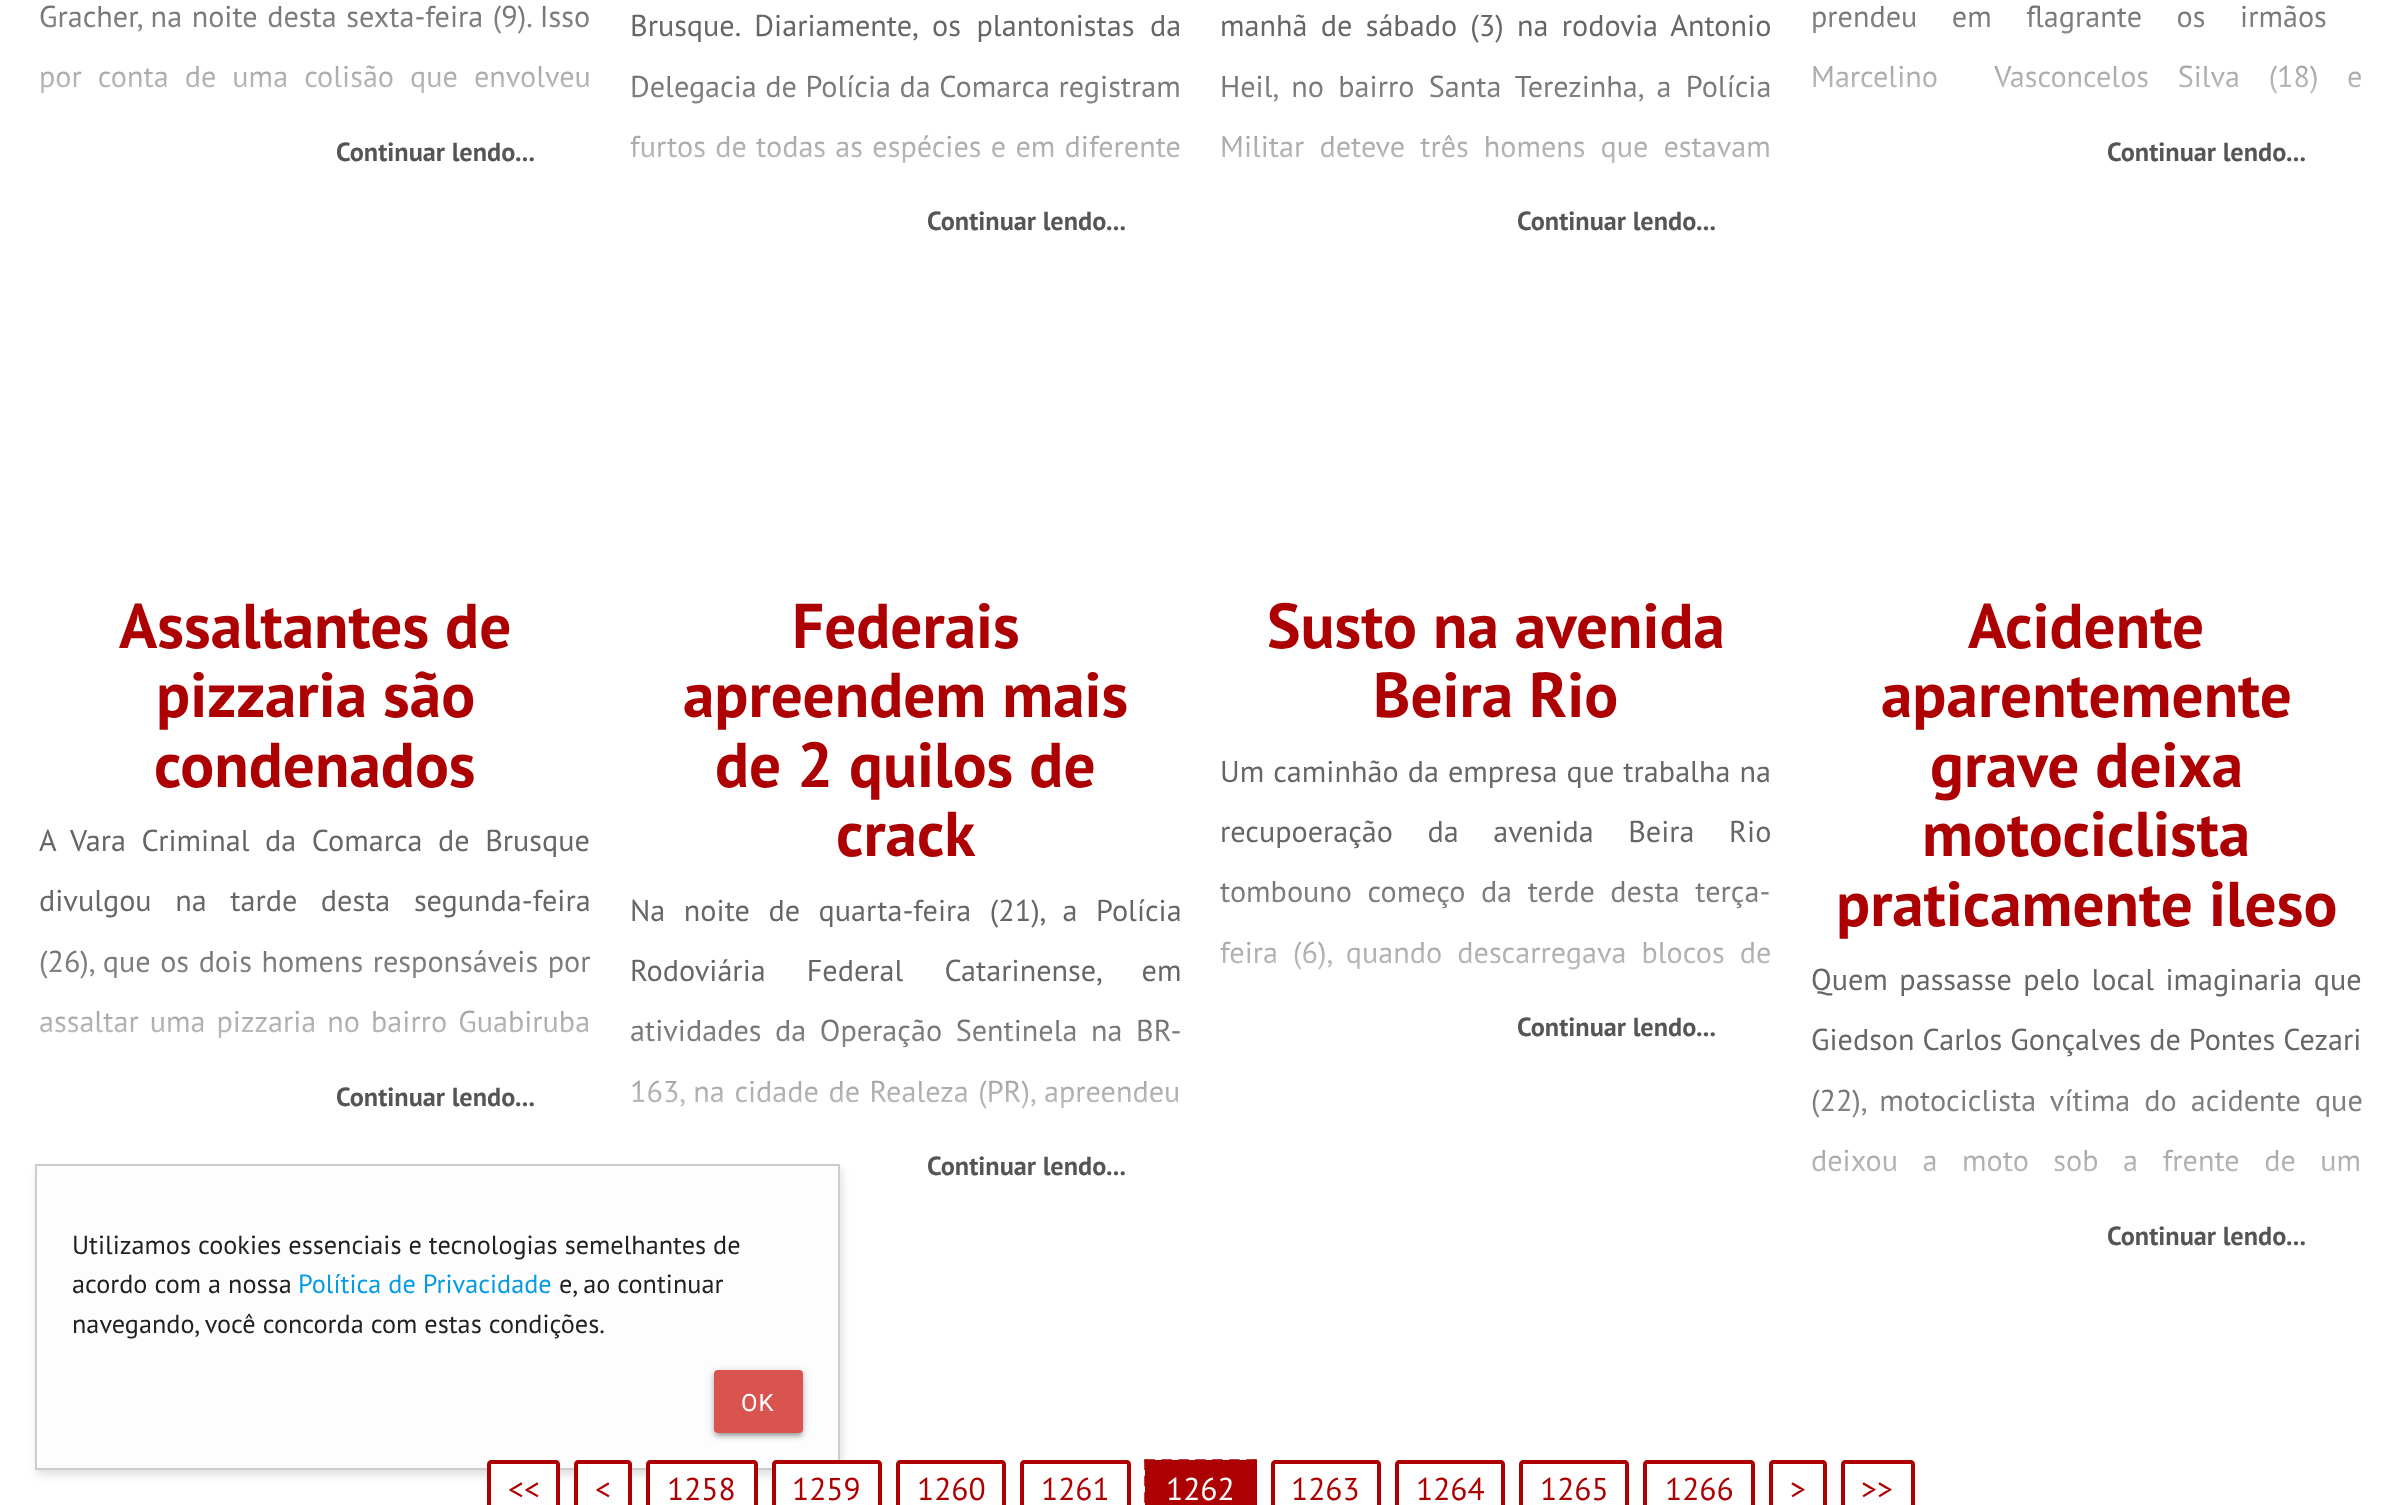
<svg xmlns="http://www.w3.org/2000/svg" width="2401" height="1505">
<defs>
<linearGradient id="g1" gradientUnits="userSpaceOnUse" x1="315" y1="-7" x2="315" y2="168"><stop offset="0" stop-color="#fff" stop-opacity="0"/><stop offset="1" stop-color="#fff"/></linearGradient>
<linearGradient id="g2" gradientUnits="userSpaceOnUse" x1="906" y1="63" x2="906" y2="238"><stop offset="0" stop-color="#fff" stop-opacity="0"/><stop offset="1" stop-color="#fff"/></linearGradient>
<linearGradient id="g3" gradientUnits="userSpaceOnUse" x1="1495" y1="63" x2="1495" y2="238"><stop offset="0" stop-color="#fff" stop-opacity="0"/><stop offset="1" stop-color="#fff"/></linearGradient>
<linearGradient id="g4" gradientUnits="userSpaceOnUse" x1="2087" y1="-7" x2="2087" y2="168"><stop offset="0" stop-color="#fff" stop-opacity="0"/><stop offset="1" stop-color="#fff"/></linearGradient>
<linearGradient id="g5" gradientUnits="userSpaceOnUse" x1="315" y1="938" x2="315" y2="1113"><stop offset="0" stop-color="#fff" stop-opacity="0"/><stop offset="1" stop-color="#fff"/></linearGradient>
<linearGradient id="g6" gradientUnits="userSpaceOnUse" x1="906" y1="1008" x2="906" y2="1183"><stop offset="0" stop-color="#fff" stop-opacity="0"/><stop offset="1" stop-color="#fff"/></linearGradient>
<linearGradient id="g7" gradientUnits="userSpaceOnUse" x1="1495" y1="868" x2="1495" y2="1043"><stop offset="0" stop-color="#fff" stop-opacity="0"/><stop offset="1" stop-color="#fff"/></linearGradient>
<linearGradient id="g8" gradientUnits="userSpaceOnUse" x1="2087" y1="1076" x2="2087" y2="1251"><stop offset="0" stop-color="#fff" stop-opacity="0"/><stop offset="1" stop-color="#fff"/></linearGradient>
</defs>
<rect width="100%" height="100%" fill="#fff"/>
<text x="39" y="27" word-spacing="1.5" style="font-family:PT Sans;font-size:30.2px;fill:#666">Gracher, na noite desta sexta-feira (9). Isso</text>
<text x="39" y="87" word-spacing="8" style="font-family:PT Sans;font-size:30.2px;fill:#666">por conta de uma colisão que envolveu</text>
<rect x="41" y="5" width="548" height="89" fill="url(#g1)"/>
<text x="336" y="161" style="font-family:PT Sans;font-size:26.25px;font-weight:bold;fill:#555">Continuar lendo...</text>
<text x="630" y="36" word-spacing="7.5" style="font-family:PT Sans;font-size:30.2px;fill:#666">Brusque. Diariamente, os plantonistas da</text>
<text x="630" y="97" word-spacing="0.5" style="font-family:PT Sans;font-size:30.2px;fill:#666">Delegacia de Polícia da Comarca registram</text>
<text x="630" y="157" word-spacing="1.25" style="font-family:PT Sans;font-size:30.2px;fill:#666">furtos de todas as espécies e em diferente</text>
<rect x="630" y="75" width="550" height="89" fill="url(#g2)"/>
<text x="927" y="230" style="font-family:PT Sans;font-size:26.25px;font-weight:bold;fill:#555">Continuar lendo...</text>
<text x="1220" y="36" word-spacing="5.25" style="font-family:PT Sans;font-size:30.2px;fill:#666">manhã de sábado (3) na rodovia Antonio</text>
<text x="1220" y="97" word-spacing="6.25" style="font-family:PT Sans;font-size:30.2px;fill:#666">Heil, no bairro Santa Terezinha, a Polícia</text>
<text x="1220" y="157" word-spacing="7" style="font-family:PT Sans;font-size:30.2px;fill:#666">Militar deteve três homens que estavam</text>
<rect x="1222" y="75" width="548" height="89" fill="url(#g3)"/>
<text x="1517" y="230" style="font-family:PT Sans;font-size:26.25px;font-weight:bold;fill:#555">Continuar lendo...</text>
<text x="1811" y="27" word-spacing="26.5" style="font-family:PT Sans;font-size:30.2px;fill:#666">prendeu em flagrante os irmãos</text>
<text x="1811" y="87" word-spacing="20.5" style="font-family:PT Sans;font-size:30.2px;fill:#666" xml:space="preserve">Marcelino  Vasconcelos Silva (18) e</text>
<rect x="1812" y="5" width="549" height="89" fill="url(#g4)"/>
<text x="2107" y="161" style="font-family:PT Sans;font-size:26.25px;font-weight:bold;fill:#555">Continuar lendo...</text>
<text x="119" y="648" style="font-family:PT Sans;font-size:63.25px;font-weight:bold;fill:#ad0003">Assaltantes de</text>
<text x="156" y="717" style="font-family:PT Sans;font-size:63.25px;font-weight:bold;fill:#ad0003">pizzaria são</text>
<text x="154" y="787" style="font-family:PT Sans;font-size:63.25px;font-weight:bold;fill:#ad0003">condenados</text>
<text x="39" y="851" word-spacing="7.5" style="font-family:PT Sans;font-size:30.2px;fill:#666">A Vara Criminal da Comarca de Brusque</text>
<text x="39" y="911" word-spacing="15.5" style="font-family:PT Sans;font-size:30.2px;fill:#666">divulgou na tarde desta segunda-feira</text>
<text x="39" y="972" word-spacing="1.5" style="font-family:PT Sans;font-size:30.2px;fill:#666">(26), que os dois homens responsáveis por</text>
<text x="39" y="1032" word-spacing="3" style="font-family:PT Sans;font-size:30.2px;fill:#666">assaltar uma pizzaria no bairro Guabiruba</text>
<rect x="40" y="950" width="550" height="89" fill="url(#g5)"/>
<text x="336" y="1106" style="font-family:PT Sans;font-size:26.25px;font-weight:bold;fill:#555">Continuar lendo...</text>
<text x="792" y="648" style="font-family:PT Sans;font-size:63.25px;font-weight:bold;fill:#ad0003">Federais</text>
<text x="683" y="717" style="font-family:PT Sans;font-size:63.25px;font-weight:bold;fill:#ad0003">apreendem mais</text>
<text x="715" y="787" style="font-family:PT Sans;font-size:63.25px;font-weight:bold;fill:#ad0003">de 2 quilos de</text>
<text x="836" y="856" style="font-family:PT Sans;font-size:63.25px;font-weight:bold;fill:#ad0003">crack</text>
<text x="630" y="921" word-spacing="10.5" style="font-family:PT Sans;font-size:30.2px;fill:#666">Na noite de quarta-feira (21), a Polícia</text>
<text x="630" y="981" word-spacing="33" style="font-family:PT Sans;font-size:30.2px;fill:#666">Rodoviária Federal Catarinense, em</text>
<text x="630" y="1041" word-spacing="5.5" style="font-family:PT Sans;font-size:30.2px;fill:#666">atividades da Operação Sentinela na BR-</text>
<text x="630" y="1102" word-spacing="1.5" style="font-family:PT Sans;font-size:30.2px;fill:#666">163, na cidade de Realeza (PR), apreendeu</text>
<rect x="631" y="1019" width="548" height="90" fill="url(#g6)"/>
<text x="927" y="1175" style="font-family:PT Sans;font-size:26.25px;font-weight:bold;fill:#555">Continuar lendo...</text>
<text x="1267" y="648" style="font-family:PT Sans;font-size:63.25px;font-weight:bold;fill:#ad0003">Susto na avenida</text>
<text x="1373" y="717" style="font-family:PT Sans;font-size:63.25px;font-weight:bold;fill:#ad0003">Beira Rio</text>
<text x="1220" y="782" word-spacing="1" style="font-family:PT Sans;font-size:30.2px;fill:#666">Um caminhão da empresa que trabalha na</text>
<text x="1220" y="842" word-spacing="26.5" style="font-family:PT Sans;font-size:30.2px;fill:#666">recupoeração da avenida Beira Rio</text>
<text x="1220" y="902" word-spacing="7.5" style="font-family:PT Sans;font-size:30.2px;fill:#666">tombouno começo da terde desta terça-</text>
<text x="1220" y="963" word-spacing="7" style="font-family:PT Sans;font-size:30.2px;fill:#666">feira (6), quando descarregava blocos de</text>
<rect x="1220" y="881" width="550" height="89" fill="url(#g7)"/>
<text x="1517" y="1036" style="font-family:PT Sans;font-size:26.25px;font-weight:bold;fill:#555">Continuar lendo...</text>
<text x="1968" y="648" style="font-family:PT Sans;font-size:63.25px;font-weight:bold;fill:#ad0003">Acidente</text>
<text x="1881" y="717" style="font-family:PT Sans;font-size:63.25px;font-weight:bold;fill:#ad0003">aparentemente</text>
<text x="1930" y="787" style="font-family:PT Sans;font-size:63.25px;font-weight:bold;fill:#ad0003">grave deixa</text>
<text x="1922" y="856" style="font-family:PT Sans;font-size:63.25px;font-weight:bold;fill:#ad0003">motociclista</text>
<text x="1836" y="926" style="font-family:PT Sans;font-size:63.25px;font-weight:bold;fill:#ad0003">praticamente ileso</text>
<text x="1811" y="990" word-spacing="3.5" style="font-family:PT Sans;font-size:30.2px;fill:#666">Quem passasse pelo local imaginaria que</text>
<text x="1811" y="1050" style="font-family:PT Sans;font-size:30.2px;fill:#666">Giedson Carlos Gonçalves de Pontes Cezari</text>
<text x="1811" y="1111" word-spacing="6" style="font-family:PT Sans;font-size:30.2px;fill:#666">(22), motociclista vítima do acidente que</text>
<text x="1811" y="1171" word-spacing="16.5" style="font-family:PT Sans;font-size:30.2px;fill:#666">deixou a moto sob a frente de um</text>
<rect x="1812" y="1089" width="549" height="83" fill="url(#g8)"/>
<text x="2107" y="1245" style="font-family:PT Sans;font-size:26.25px;font-weight:bold;fill:#555">Continuar lendo...</text>
<rect x="37" y="1169" width="805" height="306" fill="#9696964d" filter="blur(4.5px)"/>
<rect x="36" y="1165" width="803" height="304" fill="#fdfdfd" stroke="#ccc" stroke-width="2"/>
<rect x="487" y="1460" width="73" height="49" rx="4" fill="#fff"/>
<path d="M491 1460c-2 0-4 2-4 4v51c0 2 2 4 4 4h65c2 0 4-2 4-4v-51c0-2-2-4-4-4zm0 4v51h65v-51z" fill="#ad0003" fill-rule="evenodd"/>
<text x="508" y="1500" style="font-family:PT Sans;font-size:31.5px;fill:#ad0003">&lt;&lt;</text>
<rect x="574" y="1460" width="58" height="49" rx="4" fill="#fff"/>
<path d="M578 1460c-2 0-4 2-4 4v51c0 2 2 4 4 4h50c2 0 4-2 4-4v-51c0-2-2-4-4-4zm0 4v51h50v-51z" fill="#ad0003" fill-rule="evenodd"/>
<text x="595" y="1500" style="font-family:PT Sans;font-size:31.5px;fill:#ad0003">&lt;</text>
<rect x="646" y="1460" width="112" height="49" rx="4" fill="#fff"/>
<path d="M650 1460c-2 0-4 2-4 4v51c0 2 2 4 4 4h104c2 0 4-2 4-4v-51c0-2-2-4-4-4zm0 4v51h104v-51z" fill="#ad0003" fill-rule="evenodd"/>
<text x="667" y="1500" style="font-family:PT Sans;font-size:31.5px;fill:#ad0003">1258</text>
<rect x="772" y="1460" width="110" height="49" rx="4" fill="#fff"/>
<path d="M776 1460c-2 0-4 2-4 4v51c0 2 2 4 4 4h102c2 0 4-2 4-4v-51c0-2-2-4-4-4zm0 4v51h102v-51z" fill="#ad0003" fill-rule="evenodd"/>
<text x="792" y="1500" style="font-family:PT Sans;font-size:31.5px;fill:#ad0003">1259</text>
<path d="M900 1460c-2 0-4 2-4 4v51c0 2 2 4 4 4h102c2 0 4-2 4-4v-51c0-2-2-4-4-4zm0 4v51h102v-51z" fill="#ad0003" fill-rule="evenodd"/>
<text x="917" y="1500" style="font-family:PT Sans;font-size:31.5px;fill:#ad0003">1260</text>
<path d="M1024 1460c-2 0-4 2-4 4v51c0 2 2 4 4 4h103c2 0 4-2 4-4v-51c0-2-2-4-4-4zm0 4v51h103v-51z" fill="#ad0003" fill-rule="evenodd"/>
<text x="1041" y="1500" style="font-family:PT Sans;font-size:31.5px;fill:#ad0003">1261</text>
<rect x="1145" y="1460" width="112" height="45" fill="#ad0003"/>
<path d="M1144.5 1461h112" fill="none" stroke="#ad0003" stroke-width="3.5" stroke-dasharray="10.5 6.42"/>
<path d="M1255 1459.5v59.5" fill="none" stroke="#ad0003" stroke-width="3.5" stroke-dasharray="10.5 5.83"/>
<path d="M1146 1459.5v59.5" fill="none" stroke="#ad0003" stroke-width="3.5" stroke-dasharray="10.5 5.83"/>
<text x="1166" y="1500" style="font-family:PT Sans;font-size:31.5px;fill:#fff">1262</text>
<path d="M1275 1460c-2 0-4 2-4 4v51c0 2 2 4 4 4h102c2 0 4-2 4-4v-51c0-2-2-4-4-4zm0 4v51h102v-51z" fill="#ad0003" fill-rule="evenodd"/>
<text x="1291" y="1500" style="font-family:PT Sans;font-size:31.5px;fill:#ad0003">1263</text>
<path d="M1399 1460c-2 0-4 2-4 4v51c0 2 2 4 4 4h102c2 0 4-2 4-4v-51c0-2-2-4-4-4zm0 4v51h102v-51z" fill="#ad0003" fill-rule="evenodd"/>
<text x="1416" y="1500" style="font-family:PT Sans;font-size:31.5px;fill:#ad0003">1264</text>
<path d="M1523 1460c-2 0-4 2-4 4v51c0 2 2 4 4 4h102c2 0 4-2 4-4v-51c0-2-2-4-4-4zm0 4v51h102v-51z" fill="#ad0003" fill-rule="evenodd"/>
<text x="1540" y="1500" style="font-family:PT Sans;font-size:31.5px;fill:#ad0003">1265</text>
<path d="M1647 1460c-2 0-4 2-4 4v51c0 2 2 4 4 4h104c2 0 4-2 4-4v-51c0-2-2-4-4-4zm0 4v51h104v-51z" fill="#ad0003" fill-rule="evenodd"/>
<text x="1665" y="1500" style="font-family:PT Sans;font-size:31.5px;fill:#ad0003">1266</text>
<path d="M1773 1460c-2 0-4 2-4 4v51c0 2 2 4 4 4h50c2 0 4-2 4-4v-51c0-2-2-4-4-4zm0 4v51h50v-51z" fill="#ad0003" fill-rule="evenodd"/>
<text x="1790" y="1500" style="font-family:PT Sans;font-size:31.5px;fill:#ad0003">&gt;</text>
<path d="M1845 1460c-2 0-4 2-4 4v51c0 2 2 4 4 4h66c2 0 4-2 4-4v-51c0-2-2-4-4-4zm0 4v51h66v-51z" fill="#ad0003" fill-rule="evenodd"/>
<text x="1861" y="1500" style="font-family:PT Sans;font-size:31.5px;fill:#ad0003">&gt;&gt;</text>
<text x="72" y="1254" style="font-family:PT Sans;font-size:26.25px;fill:#212121">Utilizamos cookies essenciais e tecnologias semelhantes de</text>
<text x="72" y="1293" style="font-family:PT Sans;font-size:26.25px;fill:#212121">acordo com a nossa</text>
<text x="298" y="1293" style="font-family:PT Sans;font-size:26.25px;fill:#039be5">Política de Privacidade</text>
<text x="559" y="1293" style="font-family:PT Sans;font-size:26.25px;fill:#212121">e, ao continuar</text>
<text x="72" y="1333" style="font-family:PT Sans;font-size:26.25px;fill:#212121">navegando, você concorda com estas condições.</text>
<rect x="714" y="1372" width="89" height="63" rx="4" fill="#00000033" filter="blur(4.5px)"/>
<rect x="718" y="1379" width="82" height="56" fill="#0000001f" filter="blur(1px)"/>
<rect x="714" y="1374" width="89" height="63" rx="4" fill="#00000024" filter="blur(2px)"/>
<rect x="714" y="1370" width="89" height="63" rx="4" fill="#d9534f"/>
<text x="741" y="1411" style="font-family:Roboto;font-size:24px;letter-spacing:1px;fill:#fff">OK</text>
</svg>
